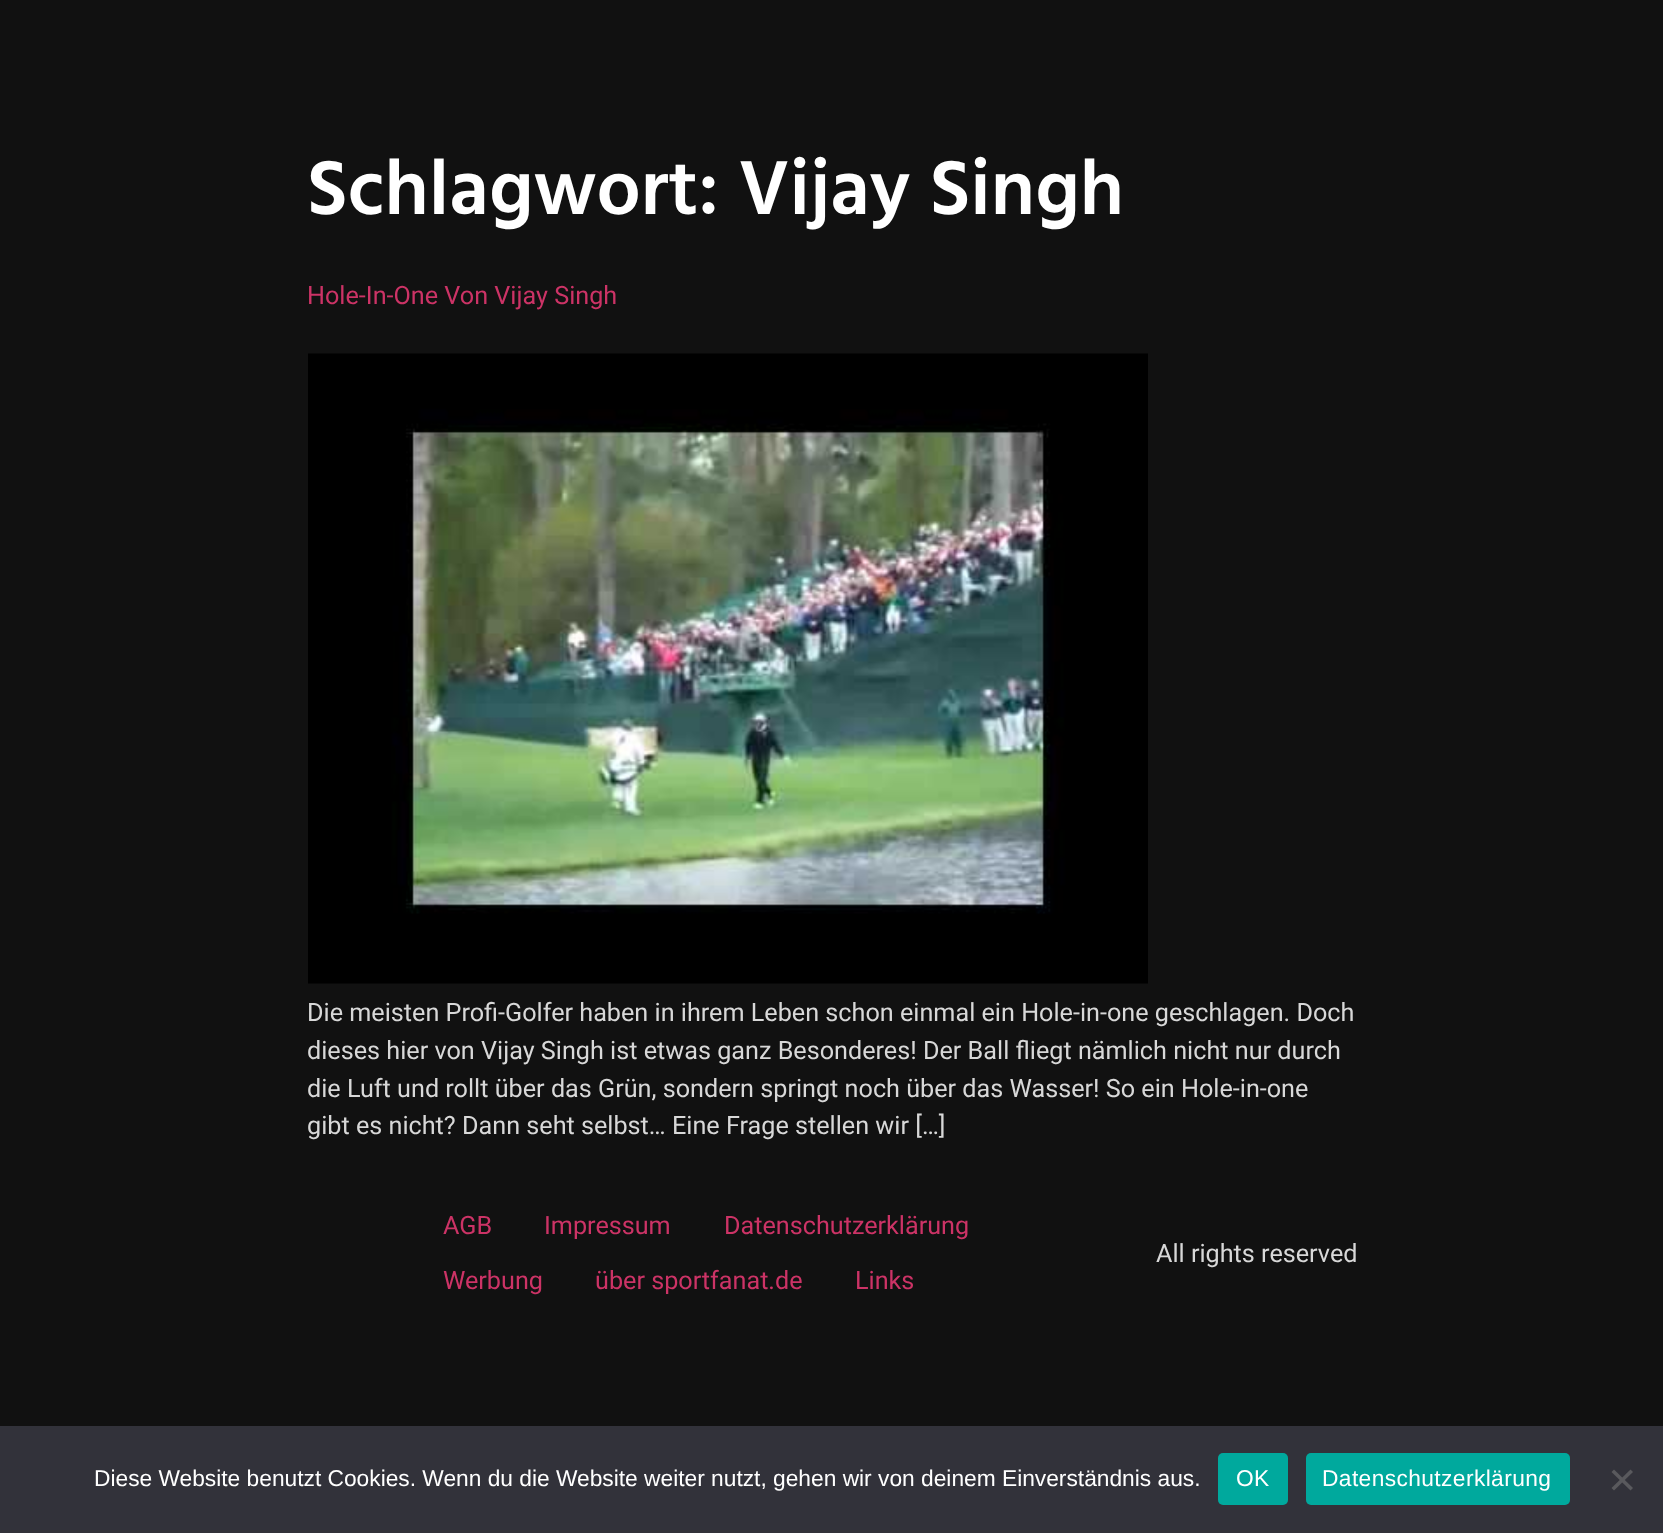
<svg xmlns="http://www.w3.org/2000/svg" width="1663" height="1533">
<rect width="100%" height="100%" fill="#111"/>
<text x="307" y="214" style="font-family:Hind;font-size:78.4px;font-weight:600;fill:#fff">Schlagwort: Vijay Singh</text>
<text x="307" y="304" style="font-family:Roboto;font-size:25.2px;fill:#c36">Hole-In-One Von Vijay Singh</text>
<image x="308" y="353" width="840" height="631" href="media/1.png"/>
<text x="307" y="1021" style="font-family:Roboto;font-size:25.2px;fill:#d8d8d8">Die meisten Profi-Golfer haben in ihrem Leben schon einmal ein Hole-in-one geschlagen. Doch</text>
<text x="307" y="1059" style="font-family:Roboto;font-size:25.2px;fill:#d8d8d8">dieses hier von Vijay Singh ist etwas ganz Besonderes! Der Ball fliegt nämlich nicht nur durch</text>
<text x="307" y="1097" style="font-family:Roboto;font-size:25.2px;fill:#d8d8d8">die Luft und rollt über das Grün, sondern springt noch über das Wasser! So ein Hole-in-one</text>
<text x="307" y="1134" style="font-family:Roboto;font-size:25.2px;fill:#d8d8d8">gibt es nicht? Dann seht selbst… Eine Frage stellen wir […]</text>
<text x="443" y="1234" style="font-family:Roboto;font-size:25.2px;fill:#c36">AGB</text>
<text x="544" y="1234" style="font-family:Roboto;font-size:25.2px;fill:#c36">Impressum</text>
<text x="724" y="1234" style="font-family:Roboto;font-size:25.2px;fill:#c36">Datenschutzerklärung</text>
<text x="443" y="1289" style="font-family:Roboto;font-size:25.2px;fill:#c36">Werbung</text>
<text x="595" y="1289" style="font-family:Roboto;font-size:25.2px;fill:#c36">über sportfanat.de</text>
<text x="855" y="1289" style="font-family:Roboto;font-size:25.2px;fill:#c36">Links</text>
<text x="1156" y="1262" style="font-family:Roboto;font-size:25.2px;fill:#d8d8d8">All rights reserved</text>
<rect y="1426" width="1663" height="107" fill="#32323a"/>
<text x="94" y="1486" style="font-family:Liberation Sans;font-size:22.75px;fill:#fff">Diese Website benutzt Cookies. Wenn du die Website weiter nutzt, gehen wir von deinem Einverständnis aus.</text>
<rect x="1218" y="1453" width="70" height="52" rx="5" fill="#00a99d"/>
<text x="1236" y="1486" style="font-family:Liberation Sans;font-size:22.75px;letter-spacing:0.4px;fill:#fff">OK</text>
<rect x="1306" y="1453" width="264" height="52" rx="5" fill="#00a99d"/>
<text x="1322" y="1486" style="font-family:Liberation Sans;font-size:22.75px;letter-spacing:0.4px;fill:#fff">Datenschutzerklärung</text>
<path d="M1630.5 1469.5l2.5 2.5l-19 18.5l-2.5-2.5z" fill="#59595d"/>
<path d="M1611.5 1472l2.5-2.5l19 18.5l-2.5 2.5z" fill="#59595d"/>
</svg>
